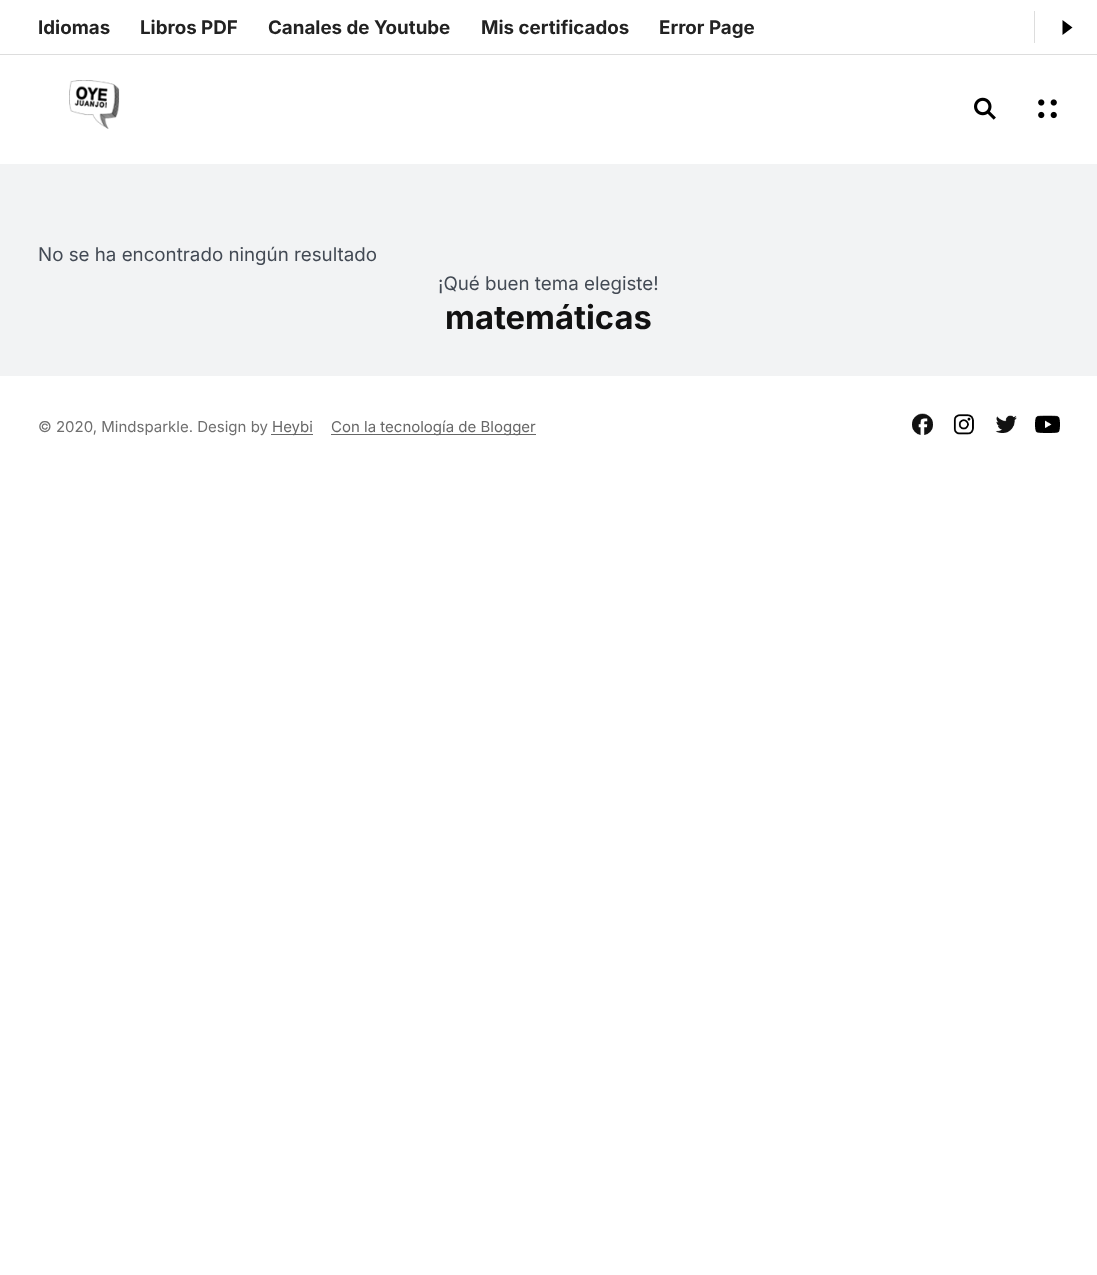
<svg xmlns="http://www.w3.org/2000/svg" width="1097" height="1275">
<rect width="100%" height="100%" fill="#fff"/>
<rect y="54" width="1097" height="1" fill="#ddd"/>
<text x="38" y="34" style="font-family:Inter;font-size:18.75px;font-weight:bold;fill:#222">Idiomas</text>
<text x="140" y="34" style="font-family:Inter;font-size:18.75px;font-weight:bold;fill:#222">Libros PDF</text>
<text x="268" y="34" style="font-family:Inter;font-size:18.75px;font-weight:bold;fill:#222">Canales de Youtube</text>
<text x="481" y="34" style="font-family:Inter;font-size:18.75px;font-weight:bold;fill:#222">Mis certificados</text>
<text x="659" y="34" style="font-family:Inter;font-size:18.75px;font-weight:bold;fill:#222">Error Page</text>
<path d="M1062.5 35v-15l10 7.5z" fill="#000"/>
<rect x="1034" y="11" width="1" height="32" fill="#ddd"/>
<image x="69" y="80" width="51" height="49" href="media/1.png"/>
<image x="974" y="97" width="22" height="23" href="media/2.png"/>
<image x="1038" y="99" width="19" height="20" href="media/3.png"/>
<rect y="164" width="1097" height="212" fill="#f2f3f4"/>
<text x="38" y="261" style="font-family:Inter;font-size:18.75px;fill:#434a54">No se ha encontrado ningún resultado</text>
<text x="438" y="290" style="font-family:Inter;font-size:18.75px;fill:#434a54">¡Qué buen tema elegiste!</text>
<text x="445" y="329" style="font-family:Inter;font-size:32.75px;font-weight:bold;fill:#111">matemáticas</text>
<text x="38" y="432" style="font-family:Inter;font-size:15px;fill:#6f6f6f">© 2020, Mindsparkle. Design by</text>
<rect x="271" y="434" width="42" height="1" fill="#676767"/>
<text x="272" y="432" style="font-family:Inter;font-size:15px;fill:#676767">Heybi</text>
<rect x="331" y="434" width="205" height="1" fill="#676767"/>
<text x="331" y="432" style="font-family:Inter;font-size:15px;fill:#676767">Con la tecnología de Blogger</text>
<image x="912" y="413" width="21" height="22" href="media/4.png"/>
<image x="953" y="414" width="21" height="21" href="media/5.png"/>
<image x="995" y="415" width="22" height="18" href="media/6.png"/>
<image x="1035" y="415" width="25" height="18" href="media/7.png"/>
</svg>
